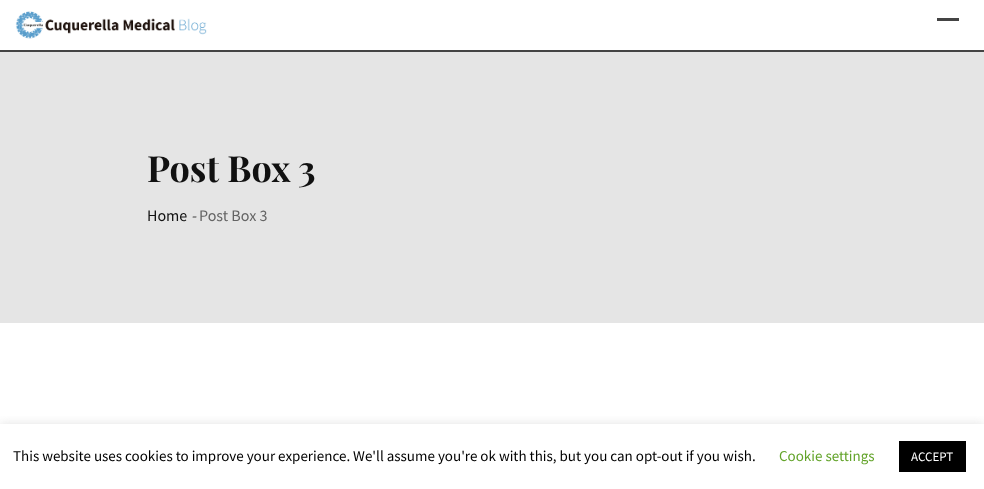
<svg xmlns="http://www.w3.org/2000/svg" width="984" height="489">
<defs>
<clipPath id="clip1"><rect x="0" y="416" width="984" height="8"/></clipPath>
</defs>
<rect width="100%" height="100%" fill="#fff"/>
<rect y="50" width="984" height="2" fill="#444"/>
<image x="15" y="11" width="192" height="28" href="media/1.png"/>
<rect x="937" y="18" width="22" height="3" fill="#444"/>
<rect y="52" width="984" height="271" fill="#e5e5e5"/>
<text x="147" y="182" style="font-family:Playfair Display;font-size:36px;font-weight:bold;fill:#111">Post Box 3</text>
<text x="147" y="221" style="font-family:Source Sans Pro;font-size:16px;fill:#111">Home</text>
<text x="191" y="221" style="font-family:Source Sans Pro;font-size:16px;font-style:italic;fill:#444">-</text>
<text x="199" y="221" style="font-family:Source Sans Pro;font-size:16px;fill:#646464">Post Box 3</text>
<g clip-path="url(#clip1)">
<rect y="423" width="984" height="65" fill="#acabab4d" filter="blur(5px)"/>
</g>
<text x="13" y="461" style="font-family:Source Sans Pro;font-size:15px;fill:#000">This website uses cookies to improve your experience. We'll assume you're ok with this, but you can opt-out if you wish.</text>
<text x="779" y="461" style="font-family:Source Sans Pro;font-size:15px;fill:#62a329">Cookie settings</text>
<rect x="899" y="441" width="67" height="31" fill="#000"/>
<text x="911" y="461" style="font-family:Source Sans Pro;font-size:13px;fill:#fff">ACCEPT</text>
</svg>
